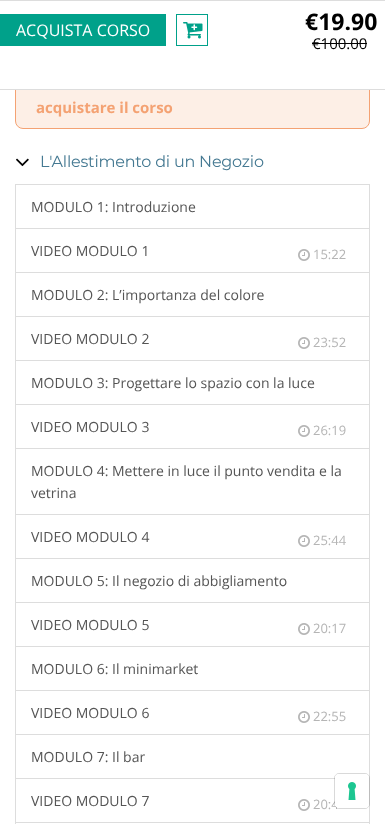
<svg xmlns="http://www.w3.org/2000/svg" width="385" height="824">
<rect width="100%" height="100%" fill="#fff"/>
<rect x="15.5" y="63.5" width="354" height="65" rx="7.5" fill="#fdefe6" stroke="#f4a273"/>
<rect x="15" y="63" width="355" height="26" fill="#fff"/>
<rect width="385" height="1" fill="#ddd"/>
<rect y="89" width="385" height="1" fill="#ddd"/>
<rect y="14" width="166" height="32" fill="#00a18a"/>
<text x="16" y="36" style="font-family:Open Sans;font-size:16px;fill:#fff">ACQUISTA CORSO</text>
<rect x="176.5" y="14.5" width="31" height="31" fill="none" stroke="#00a18a"/>
<image x="183" y="22" width="20" height="17" href="media/1.png"/>
<text x="305" y="30" style="font-family:Open Sans;font-size:23px;font-weight:bold;fill:#000">€19.90</text>
<text x="312" y="49" style="font-family:Open Sans;font-size:15px;fill:#000">€100.00</text>
<rect x="312" y="43" width="55" height="1" fill="#000"/>
<text x="36" y="113" style="font-family:Open Sans;font-size:15px;font-weight:bold;fill:#f4a273">acquistare il corso</text>
<image x="16" y="158" width="13" height="9" href="media/2.png"/>
<text x="40" y="167" style="font-family:Montserrat;font-size:16px;letter-spacing:-0.2px;fill:#457992">L'Allestimento di un Negozio</text>
<rect x="15" y="184" width="355" height="1" fill="#ddd"/>
<rect x="369" y="184" width="1" height="640" fill="#ddd"/>
<rect x="15" y="184" width="1" height="640" fill="#ddd"/>
<rect x="16" y="228" width="353" height="1" fill="#ddd"/>
<text x="31" y="212" style="font-family:Open Sans;font-size:14px;fill:#555">MODULO 1: Introduzione</text>
<rect x="16" y="272" width="353" height="1" fill="#ddd"/>
<text x="31" y="256" style="font-family:Open Sans;font-size:14px;fill:#555">VIDEO MODULO 1</text>
<image x="298" y="249" width="12" height="12" href="media/3.png"/>
<text x="313" y="259" style="font-family:Open Sans;font-size:13px;fill:#b5b5b5">15:22</text>
<rect x="16" y="316" width="353" height="1" fill="#ddd"/>
<text x="31" y="300" style="font-family:Open Sans;font-size:14px;fill:#555">MODULO 2: L’importanza del colore</text>
<rect x="16" y="360" width="353" height="1" fill="#ddd"/>
<text x="31" y="344" style="font-family:Open Sans;font-size:14px;fill:#555">VIDEO MODULO 2</text>
<image x="298" y="337" width="12" height="12" href="media/3.png"/>
<text x="313" y="347" style="font-family:Open Sans;font-size:13px;fill:#b5b5b5">23:52</text>
<rect x="16" y="404" width="353" height="1" fill="#ddd"/>
<text x="31" y="388" style="font-family:Open Sans;font-size:14px;fill:#555">MODULO 3: Progettare lo spazio con la luce</text>
<rect x="16" y="448" width="353" height="1" fill="#ddd"/>
<text x="31" y="432" style="font-family:Open Sans;font-size:14px;fill:#555">VIDEO MODULO 3</text>
<image x="298" y="425" width="12" height="12" href="media/3.png"/>
<text x="313" y="435" style="font-family:Open Sans;font-size:13px;fill:#b5b5b5">26:19</text>
<rect x="16" y="514" width="353" height="1" fill="#ddd"/>
<text x="31" y="476" style="font-family:Open Sans;font-size:14px;fill:#555">MODULO 4: Mettere in luce il punto vendita e la</text>
<text x="31" y="498" style="font-family:Open Sans;font-size:14px;fill:#555">vetrina</text>
<rect x="16" y="558" width="353" height="1" fill="#ddd"/>
<text x="31" y="542" style="font-family:Open Sans;font-size:14px;fill:#555">VIDEO MODULO 4</text>
<image x="298" y="535" width="12" height="12" href="media/3.png"/>
<text x="313" y="545" style="font-family:Open Sans;font-size:13px;fill:#b5b5b5">25:44</text>
<rect x="16" y="602" width="353" height="1" fill="#ddd"/>
<text x="31" y="586" style="font-family:Open Sans;font-size:14px;fill:#555">MODULO 5: Il negozio di abbigliamento</text>
<rect x="16" y="646" width="353" height="1" fill="#ddd"/>
<text x="31" y="630" style="font-family:Open Sans;font-size:14px;fill:#555">VIDEO MODULO 5</text>
<image x="298" y="623" width="12" height="12" href="media/3.png"/>
<text x="313" y="633" style="font-family:Open Sans;font-size:13px;fill:#b5b5b5">20:17</text>
<rect x="16" y="690" width="353" height="1" fill="#ddd"/>
<text x="31" y="674" style="font-family:Open Sans;font-size:14px;fill:#555">MODULO 6: Il minimarket</text>
<rect x="16" y="734" width="353" height="1" fill="#ddd"/>
<text x="31" y="718" style="font-family:Open Sans;font-size:14px;fill:#555">VIDEO MODULO 6</text>
<image x="298" y="711" width="12" height="12" href="media/3.png"/>
<text x="313" y="721" style="font-family:Open Sans;font-size:13px;fill:#b5b5b5">22:55</text>
<rect x="16" y="778" width="319" height="1" fill="#ddd"/>
<text x="31" y="762" style="font-family:Open Sans;font-size:14px;fill:#555">MODULO 7: Il bar</text>
<rect x="16" y="822" width="353" height="1" fill="#ddd"/>
<text x="31" y="806" style="font-family:Open Sans;font-size:14px;fill:#555">VIDEO MODULO 7</text>
<image x="298" y="799" width="12" height="12" href="media/3.png"/>
<text x="313" y="809" style="font-family:Open Sans;font-size:13px;fill:#b5b5b5">20:4</text>
<rect x="334.5" y="773.5" width="35" height="35" rx="4.5" fill="none" stroke="#00000026"/>
<rect x="335" y="774" width="34" height="34" rx="4" fill="#fff"/>
<image x="348" y="782" width="8" height="18" href="media/4.png"/>
</svg>
